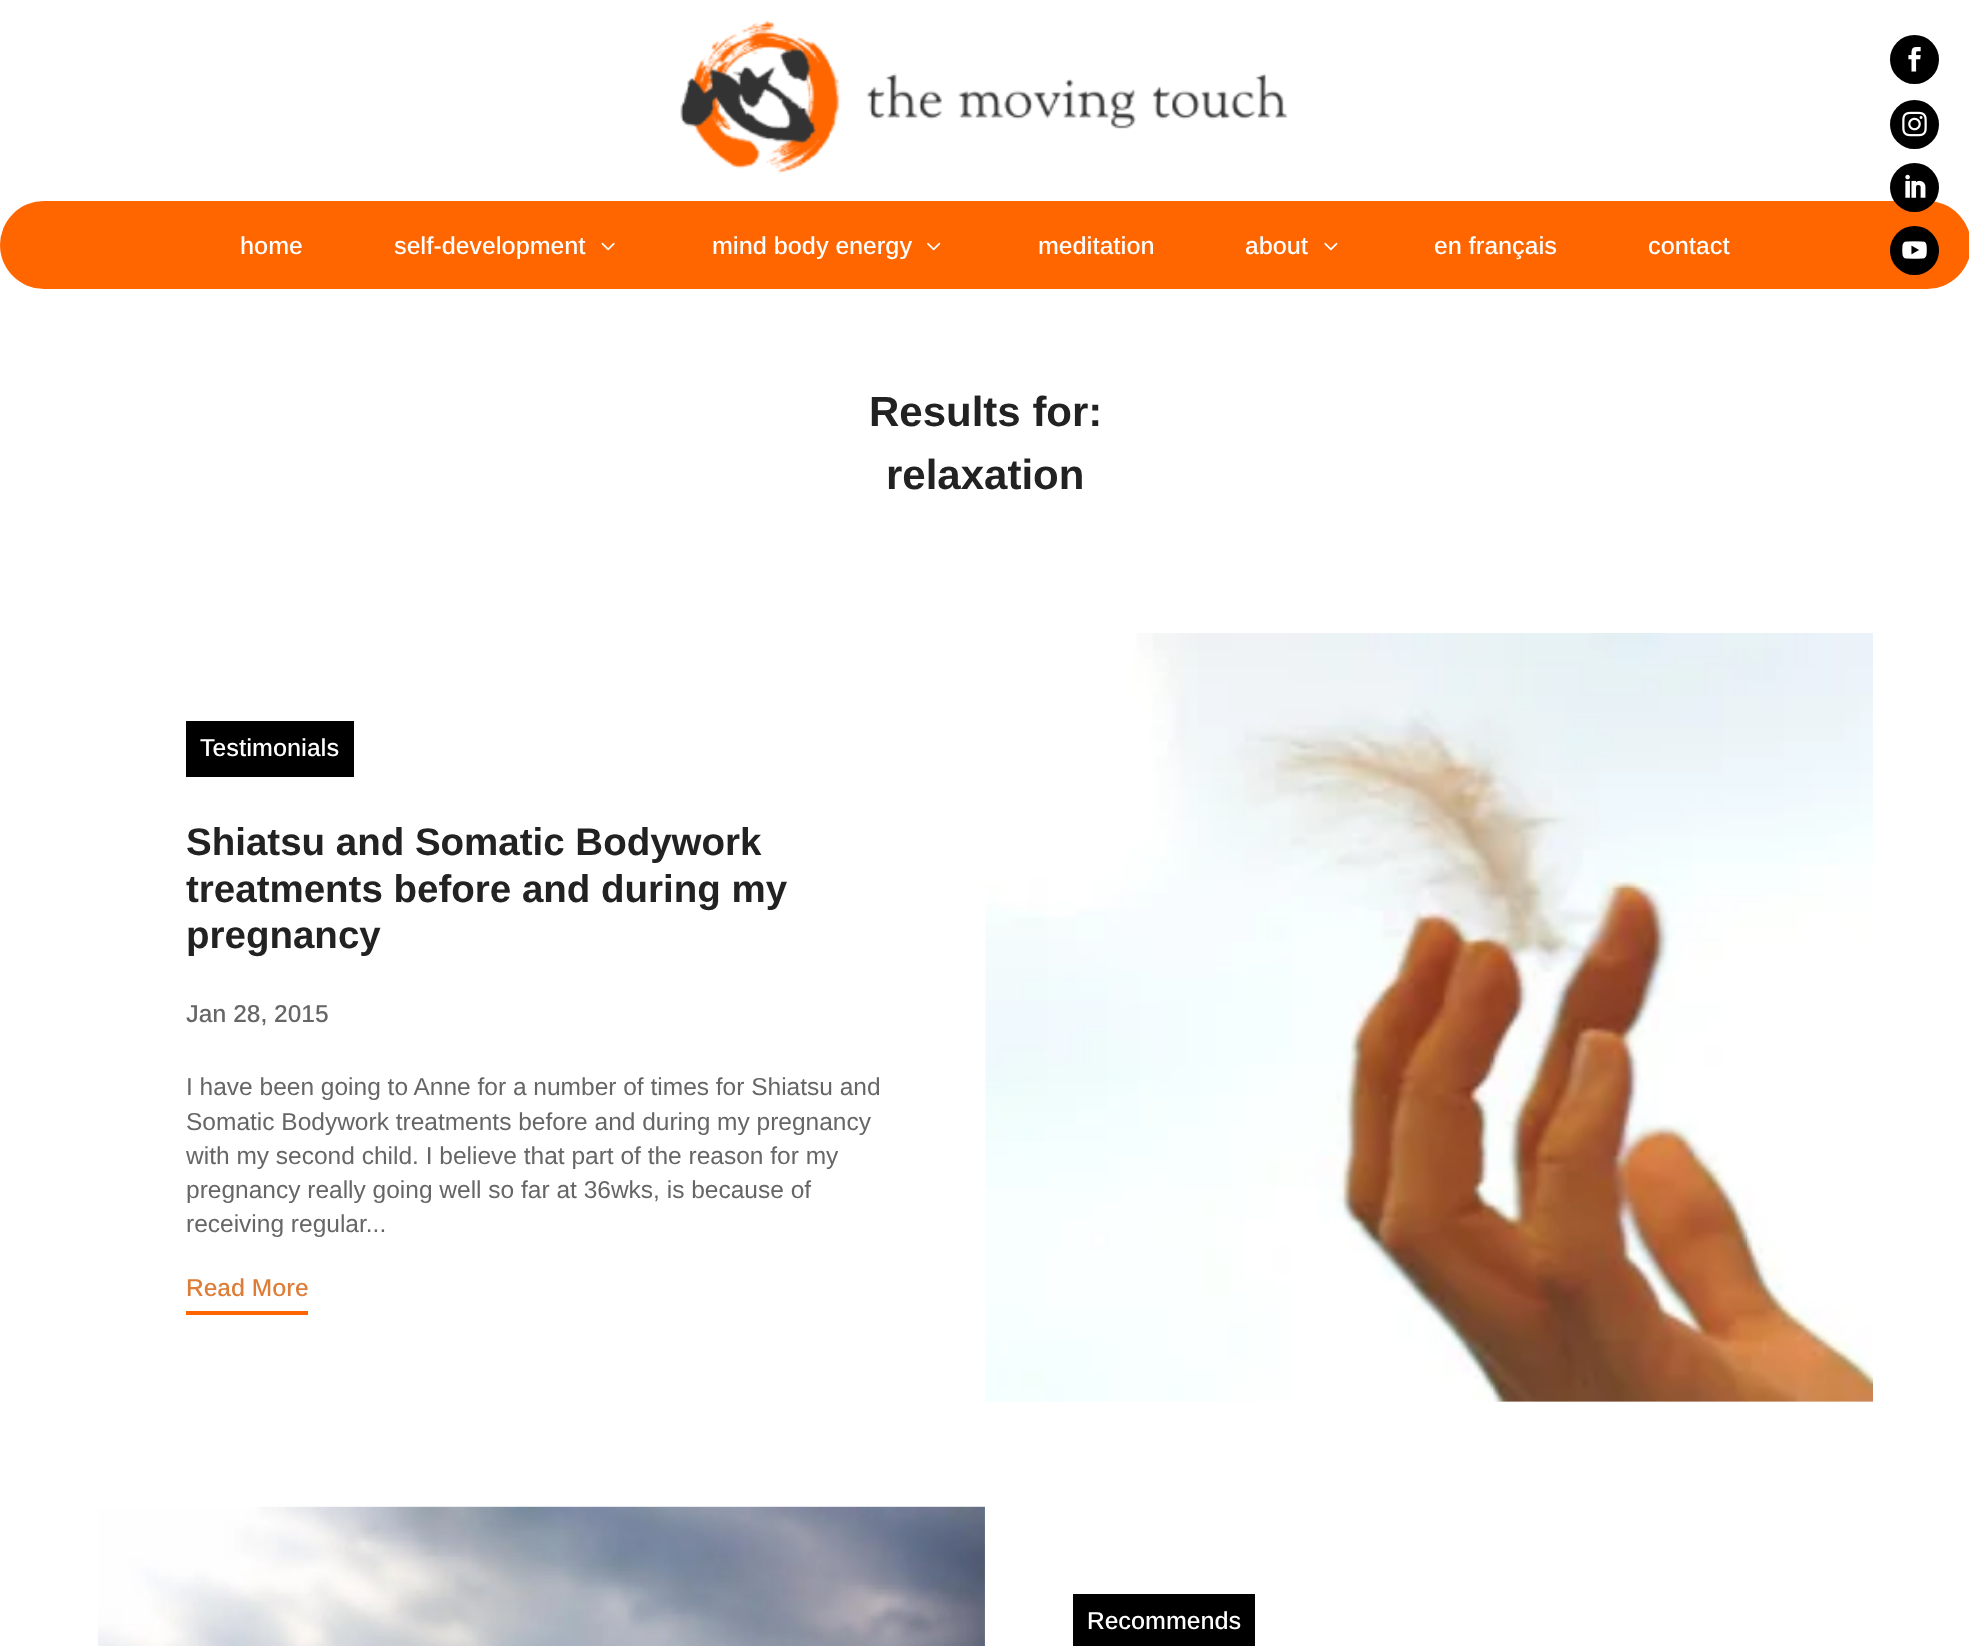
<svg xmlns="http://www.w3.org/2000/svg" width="1969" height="1646">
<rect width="100%" height="100%" fill="#fff"/>
<image x="680" y="20" width="608" height="154" href="media/1.png"/>
<rect y="201" width="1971" height="88" rx="44" fill="#f60"/>
<text x="240" y="254" style="font-family:Arimo;font-size:24.5px;font-weight:500;fill:#fff">home</text>
<text x="394" y="254" style="font-family:Arimo;font-size:24.5px;font-weight:500;fill:#fff">self-development</text>
<image x="601" y="242" width="14" height="9" href="media/2.png"/>
<text x="712" y="254" style="font-family:Arimo;font-size:24.5px;font-weight:500;fill:#fff">mind body energy</text>
<image x="927" y="242" width="14" height="9" href="media/3.png"/>
<text x="1038" y="254" style="font-family:Arimo;font-size:24.5px;font-weight:500;fill:#fff">meditation</text>
<text x="1245" y="254" style="font-family:Arimo;font-size:24.5px;font-weight:500;fill:#fff">about</text>
<image x="1324" y="242" width="14" height="9" href="media/4.png"/>
<text x="1434" y="254" style="font-family:Arimo;font-size:24.5px;font-weight:500;fill:#fff">en français</text>
<text x="1648" y="254" style="font-family:Arimo;font-size:24.5px;font-weight:500;fill:#fff">contact</text>
<circle cx="1914.5" cy="59.5" r="24.5" fill="#000"/>
<image x="1908" y="47" width="13" height="25" href="media/5.png"/>
<circle cx="1914.5" cy="124.5" r="24.5" fill="#000"/>
<image x="1902" y="111" width="25" height="26" href="media/6.png"/>
<circle cx="1914.5" cy="187.5" r="24.5" fill="#000"/>
<image x="1905" y="174" width="21" height="24" href="media/7.png"/>
<circle cx="1914.5" cy="250.5" r="24.5" fill="#000"/>
<image x="1902" y="241" width="25" height="18" href="media/8.png"/>
<text x="869" y="426" style="font-family:Arimo;font-size:42px;font-weight:bold;fill:#222">Results for:</text>
<text x="886" y="489" style="font-family:Arimo;font-size:42px;font-weight:bold;fill:#222">relaxation</text>
<rect x="186" y="721" width="168" height="56" fill="#000"/>
<text x="200" y="756" style="font-family:Arimo;font-size:24.5px;font-weight:500;fill:#fff">Testimonials</text>
<text x="186" y="855" style="font-family:Arimo;font-size:38.5px;font-weight:bold;fill:#222">Shiatsu and Somatic Bodywork</text>
<text x="186" y="902" style="font-family:Arimo;font-size:38.5px;font-weight:bold;fill:#222">treatments before and during my</text>
<text x="186" y="948" style="font-family:Arimo;font-size:38.5px;font-weight:bold;fill:#222">pregnancy</text>
<text x="186" y="1022" style="font-family:Arimo;font-size:24.5px;font-weight:500;fill:#666">Jan 28, 2015</text>
<text x="186" y="1095" style="font-family:Arimo;font-size:24.5px;fill:#666">I have been going to Anne for a number of times for Shiatsu and</text>
<text x="186" y="1130" style="font-family:Arimo;font-size:24.5px;fill:#666">Somatic Bodywork treatments before and during my pregnancy</text>
<text x="186" y="1164" style="font-family:Arimo;font-size:24.5px;fill:#666">with my second child. I believe that part of the reason for my</text>
<text x="186" y="1198" style="font-family:Arimo;font-size:24.5px;fill:#666">pregnancy really going well so far at 36wks, is because of</text>
<text x="186" y="1232" style="font-family:Arimo;font-size:24.5px;fill:#666">receiving regular...</text>
<rect x="186" y="1311" width="122" height="4" fill="#f60"/>
<text x="186" y="1296" style="font-family:Arimo;font-size:24.5px;font-weight:500;fill:#dd7d37">Read More</text>
<image x="985" y="633" width="888" height="769" href="media/9.png"/>
<image x="98" y="1506" width="887" height="140" href="media/10.png"/>
<rect x="1073" y="1594" width="182" height="52" fill="#000"/>
<text x="1087" y="1629" style="font-family:Arimo;font-size:24.5px;font-weight:500;fill:#fff">Recommends</text>
</svg>
